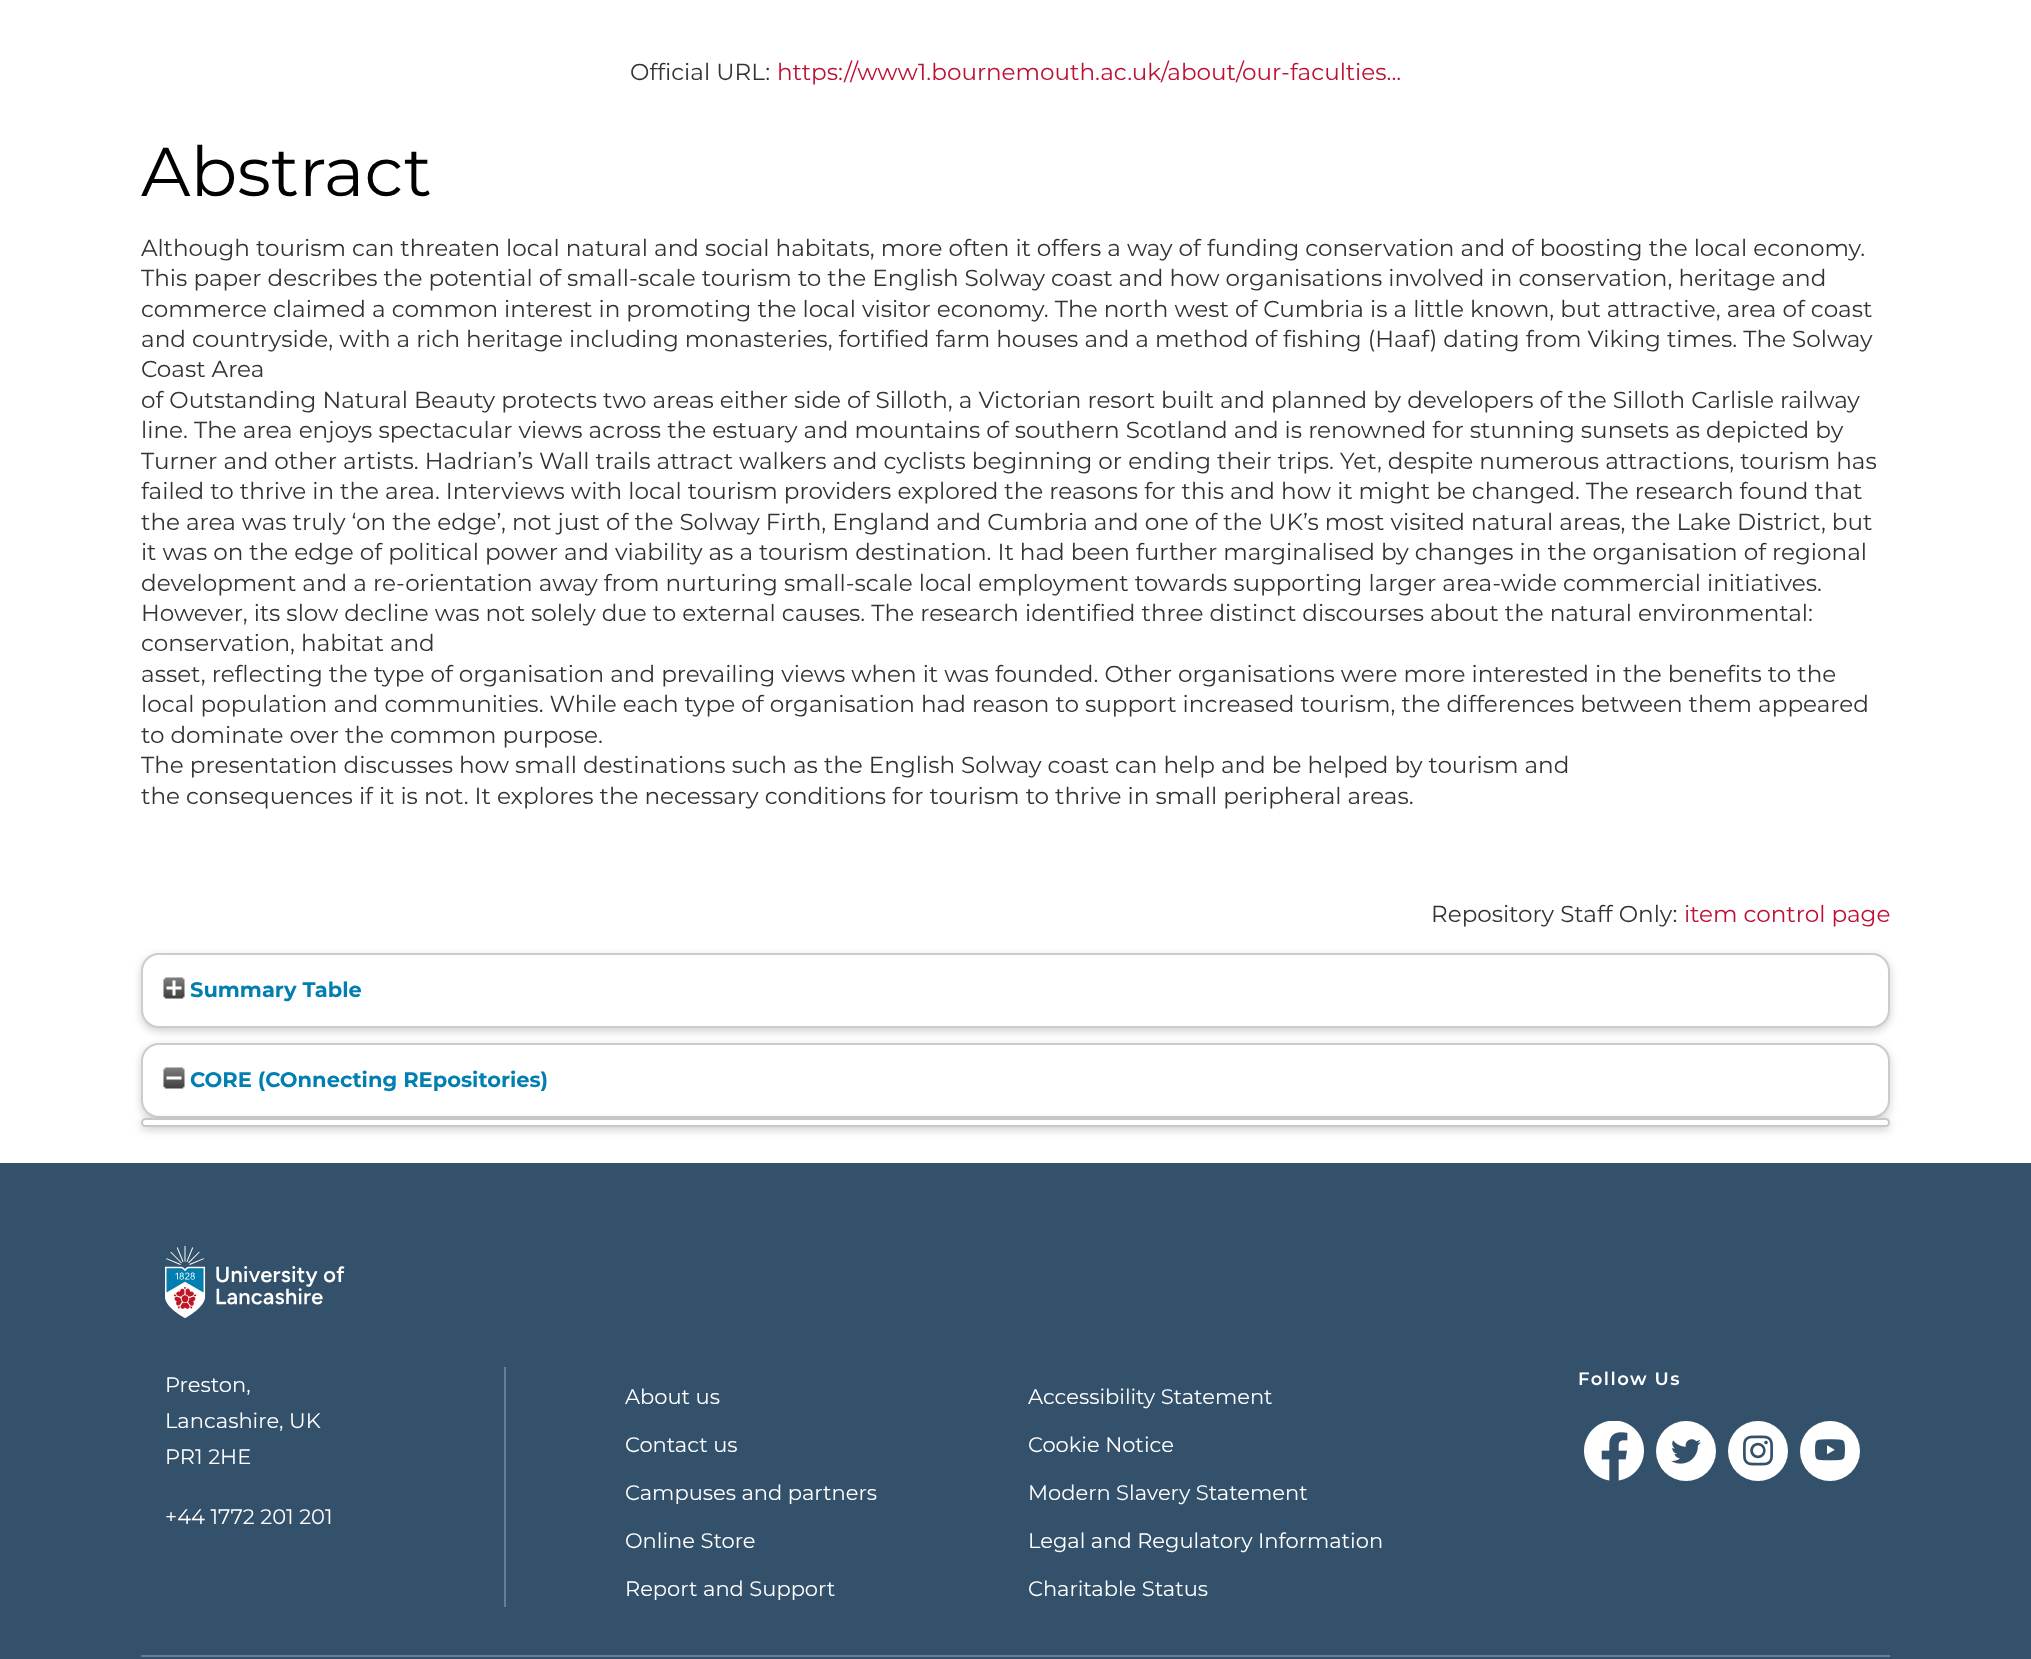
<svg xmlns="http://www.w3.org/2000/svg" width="2031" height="1659">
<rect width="100%" height="100%" fill="#fff"/>
<text x="630" y="80" style="font-family:Montserrat;font-size:23.1px;fill:#333">Official URL:</text>
<text x="777" y="80" style="font-family:Montserrat;font-size:23.1px;fill:#be0f34">https://www1.bournemouth.ac.uk/about/our-faculties...</text>
<text x="141" y="196" style="font-family:Montserrat;font-size:69px;fill:#000">Abstract</text>
<text x="141" y="256" style="font-family:Montserrat;font-size:23.1px;fill:#333">Although tourism can threaten local natural and social habitats, more often it offers a way of funding conservation and of boosting the local economy.</text>
<text x="141" y="286" style="font-family:Montserrat;font-size:23.1px;fill:#333">This paper describes the potential of small-scale tourism to the English Solway coast and how organisations involved in conservation, heritage and</text>
<text x="141" y="317" style="font-family:Montserrat;font-size:23.1px;fill:#333">commerce claimed a common interest in promoting the local visitor economy. The north west of Cumbria is a little known, but attractive, area of coast</text>
<text x="141" y="347" style="font-family:Montserrat;font-size:23.1px;fill:#333">and countryside, with a rich heritage including monasteries, fortified farm houses and a method of fishing (Haaf) dating from Viking times. The Solway</text>
<text x="141" y="377" style="font-family:Montserrat;font-size:23.1px;fill:#333">Coast Area</text>
<text x="141" y="408" style="font-family:Montserrat;font-size:23.1px;fill:#333">of Outstanding Natural Beauty protects two areas either side of Silloth, a Victorian resort built and planned by developers of the Silloth Carlisle railway</text>
<text x="141" y="438" style="font-family:Montserrat;font-size:23.1px;fill:#333">line. The area enjoys spectacular views across the estuary and mountains of southern Scotland and is renowned for stunning sunsets as depicted by</text>
<text x="141" y="469" style="font-family:Montserrat;font-size:23.1px;fill:#333">Turner and other artists. Hadrian’s Wall trails attract walkers and cyclists beginning or ending their trips. Yet, despite numerous attractions, tourism has</text>
<text x="141" y="499" style="font-family:Montserrat;font-size:23.1px;fill:#333">failed to thrive in the area. Interviews with local tourism providers explored the reasons for this and how it might be changed. The research found that</text>
<text x="141" y="530" style="font-family:Montserrat;font-size:23.1px;fill:#333">the area was truly ‘on the edge’, not just of the Solway Firth, England and Cumbria and one of the UK’s most visited natural areas, the Lake District, but</text>
<text x="141" y="560" style="font-family:Montserrat;font-size:23.1px;fill:#333">it was on the edge of political power and viability as a tourism destination. It had been further marginalised by changes in the organisation of regional</text>
<text x="141" y="591" style="font-family:Montserrat;font-size:23.1px;fill:#333">development and a re-orientation away from nurturing small-scale local employment towards supporting larger area-wide commercial initiatives.</text>
<text x="141" y="621" style="font-family:Montserrat;font-size:23.1px;fill:#333">However, its slow decline was not solely due to external causes. The research identified three distinct discourses about the natural environmental:</text>
<text x="141" y="651" style="font-family:Montserrat;font-size:23.1px;fill:#333">conservation, habitat and</text>
<text x="141" y="682" style="font-family:Montserrat;font-size:23.1px;fill:#333">asset, reflecting the type of organisation and prevailing views when it was founded. Other organisations were more interested in the benefits to the</text>
<text x="141" y="712" style="font-family:Montserrat;font-size:23.1px;fill:#333">local population and communities. While each type of organisation had reason to support increased tourism, the differences between them appeared</text>
<text x="141" y="743" style="font-family:Montserrat;font-size:23.1px;fill:#333">to dominate over the common purpose.</text>
<text x="141" y="773" style="font-family:Montserrat;font-size:23.1px;fill:#333">The presentation discusses how small destinations such as the English Solway coast can help and be helped by tourism and</text>
<text x="141" y="804" style="font-family:Montserrat;font-size:23.1px;fill:#333">the consequences if it is not. It explores the necessary conditions for tourism to thrive in small peripheral areas.</text>
<text x="1431" y="922" style="font-family:Montserrat;font-size:23.1px;fill:#333">Repository Staff Only:</text>
<text x="1684" y="922" style="font-family:Montserrat;font-size:23.1px;fill:#be0f34">item control page</text>
<rect x="141" y="956" width="1749" height="75" rx="18" fill="#6464644d" filter="blur(4.5px)"/>
<rect x="142" y="954" width="1747" height="73" rx="17" fill="#fff" stroke="#ccc" stroke-width="2"/>
<image x="163" y="977" width="22" height="22" href="media/1.png"/>
<text x="190" y="997" style="font-family:Montserrat;font-size:21px;font-weight:bold;fill:#007fb0">Summary Table</text>
<rect x="141" y="1046" width="1749" height="75" rx="18" fill="#6464644d" filter="blur(4.5px)"/>
<rect x="142" y="1044" width="1747" height="73" rx="17" fill="#fff" stroke="#ccc" stroke-width="2"/>
<image x="163" y="1067" width="22" height="22" href="media/2.png"/>
<text x="190" y="1087" style="font-family:Montserrat;font-size:21px;font-weight:bold;fill:#007fb0">CORE (COnnecting REpositories)</text>
<rect x="141" y="1121" width="1749" height="9" rx="4.5" fill="#6464644d" filter="blur(4.5px)"/>
<rect x="142" y="1119" width="1747" height="7" rx="3.5" fill="#fff" stroke="#c8c8c8" stroke-width="2"/>
<rect y="1163" width="2031" height="496" fill="#34516c"/>
<image x="165" y="1246" width="180" height="72" href="media/3.png"/>
<rect x="141" y="1655" width="1749" height="2" fill="#677d91"/>
<rect x="504" y="1367" width="2" height="240" fill="#677d91"/>
<text x="165" y="1392" style="font-family:Montserrat;font-size:21px;fill:#fff">Preston,</text>
<text x="165" y="1428" style="font-family:Montserrat;font-size:21px;fill:#fff">Lancashire, UK</text>
<text x="165" y="1464" style="font-family:Montserrat;font-size:21px;fill:#fff">PR1 2HE</text>
<text x="165" y="1524" style="font-family:Montserrat;font-size:21px;fill:#fff">+44 1772 201 201</text>
<text x="625" y="1404" style="font-family:Montserrat;font-size:21px;fill:#fff">About us</text>
<text x="1028" y="1404" style="font-family:Montserrat;font-size:21px;fill:#fff">Accessibility Statement</text>
<text x="625" y="1452" style="font-family:Montserrat;font-size:21px;fill:#fff">Contact us</text>
<text x="1028" y="1452" style="font-family:Montserrat;font-size:21px;fill:#fff">Cookie Notice</text>
<text x="625" y="1500" style="font-family:Montserrat;font-size:21px;fill:#fff">Campuses and partners</text>
<text x="1028" y="1500" style="font-family:Montserrat;font-size:21px;fill:#fff">Modern Slavery Statement</text>
<text x="625" y="1548" style="font-family:Montserrat;font-size:21px;fill:#fff">Online Store</text>
<text x="1028" y="1548" style="font-family:Montserrat;font-size:21px;fill:#fff">Legal and Regulatory Information</text>
<text x="625" y="1596" style="font-family:Montserrat;font-size:21px;fill:#fff">Report and Support</text>
<text x="1028" y="1596" style="font-family:Montserrat;font-size:21px;fill:#fff">Charitable Status</text>
<text x="1578" y="1385" style="font-family:Montserrat;font-size:18px;font-weight:600;letter-spacing:1.5px;fill:#fff">Follow Us</text>
<image x="1584" y="1421" width="60" height="60" href="media/4.png"/>
<circle cx="1686" cy="1451" r="30" fill="#fff"/>
<image x="1671" y="1439" width="30" height="25" href="media/5.png"/>
<circle cx="1758" cy="1451" r="30" fill="#fff"/>
<image x="1743" y="1435" width="30" height="31" href="media/6.png"/>
<circle cx="1830" cy="1451" r="30" fill="#fff"/>
<image x="1815" y="1439" width="30" height="22" href="media/7.png"/>
</svg>
